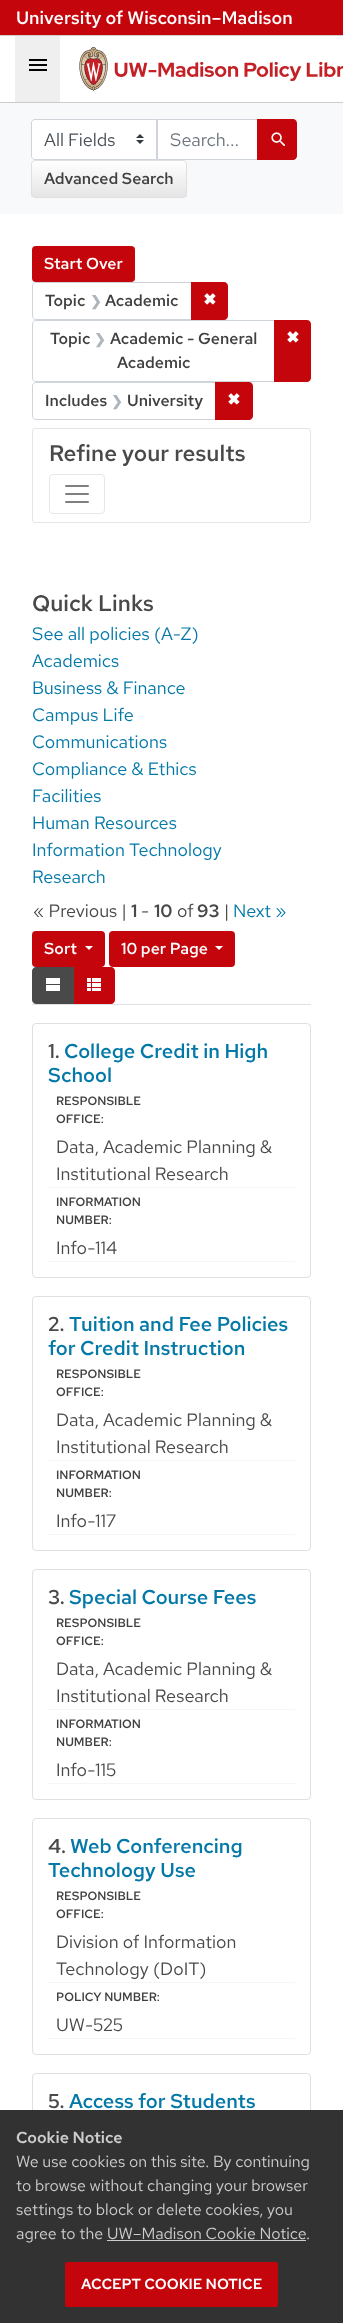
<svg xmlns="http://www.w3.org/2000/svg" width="343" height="2323">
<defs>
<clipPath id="clip1"><rect x="31" y="160" width="156" height="38" rx="4"/></clipPath>
<linearGradient id="g1" gradientUnits="userSpaceOnUse" x1="109" y1="161" x2="109" y2="197"><stop offset="0" stop-color="#fff"/><stop offset="1" stop-color="#e5e5e5"/></linearGradient>
</defs>
<rect width="100%" height="100%" fill="#fff"/>
<rect width="343" height="35" fill="#c5050c"/>
<rect y="35" width="343" height="1" fill="#cfcfcf"/>
<text x="16" y="24" style="font-family:Red Hat Text;font-size:18px;font-weight:600;fill:#fff">University of Wisconsin–Madison</text>
<rect y="102" width="343" height="1" fill="#ccc"/>
<rect x="15" y="36" width="45" height="66" fill="#efefef"/>
<image x="29" y="59" width="18" height="12" href="media/1.png"/>
<image x="79" y="47" width="264" height="44" href="media/2.png"/>
<rect y="103" width="343" height="111" fill="#f8f9fa"/>
<path d="M35 119h122v41h-122c-2 0-4-2-4-4v-33c0-2 2-4 4-4z" fill="#fff"/>
<image x="136" y="134" width="8" height="10" href="media/3.png"/>
<path d="M35 119.5h121.5v40h-121.5c-2 0-3.5-1.5-3.5-3.5v-33c0-2 1.5-3.5 3.5-3.5z" fill="none" stroke="#ced4da"/>
<text x="44" y="146" style="font-family:Red Hat Text;font-size:18px;fill:#495057">All Fields</text>
<rect x="157.5" y="119.5" width="100" height="40" fill="#fff" stroke="#ced4da"/>
<text x="170" y="146" style="font-family:Red Hat Text;font-size:18px;fill:#6c757d">Search...</text>
<path d="M257 119h36c2 0 4 2 4 4v33c0 2-2 4-4 4h-36z" fill="#c5050c"/>
<image x="271" y="132" width="14" height="14" href="media/4.png"/>
<g clip-path="url(#clip1)">
<rect x="31" y="161" width="156" height="36" fill="url(#g1)"/>
</g>
<rect x="31.5" y="160.5" width="155" height="37" rx="3.5" fill="none" stroke="#e0e0e0"/>
<text x="44" y="184" style="font-family:Red Hat Text;font-size:16px;font-weight:600;fill:#404040">Advanced Search</text>
<rect x="32" y="246" width="103" height="36" rx="4" fill="#c5050c"/>
<text x="44" y="269" style="font-family:Red Hat Text;font-size:16px;font-weight:600;fill:#fff">Start Over</text>
<path d="M36 282.5h155.5v37h-155.5c-2 0-3.5-1.5-3.5-3.5v-30c0-2 1.5-3.5 3.5-3.5z" fill="none" stroke="#ced4da"/>
<text x="45" y="306" style="font-family:Red Hat Text;font-size:16px;font-weight:600;fill:#404040">Topic</text>
<text x="90" y="306" style="font-family:DejaVu Sans;font-size:14px;font-weight:bold;fill:#adb5bd">❯</text>
<text x="105" y="306" style="font-family:Red Hat Text;font-size:16px;font-weight:600;fill:#404040">Academic</text>
<path d="M191 282h33c2 0 4 2 4 4v30c0 2-2 4-4 4h-33z" fill="#c5050c"/>
<text x="203" y="305" style="font-family:DejaVu Sans;font-size:16px;font-weight:bold;fill:#fff">✖</text>
<path d="M36 320.5h238.5v61h-238.5c-2 0-3.5-1.5-3.5-3.5v-54c0-2 1.5-3.5 3.5-3.5z" fill="none" stroke="#ced4da"/>
<text x="50" y="344" style="font-family:Red Hat Text;font-size:16px;font-weight:600;fill:#404040">Topic</text>
<text x="94" y="344" style="font-family:DejaVu Sans;font-size:14px;font-weight:bold;fill:#adb5bd">❯</text>
<text x="110" y="344" style="font-family:Red Hat Text;font-size:16px;font-weight:600;fill:#404040">Academic - General</text>
<text x="117" y="368" style="font-family:Red Hat Text;font-size:16px;font-weight:600;fill:#404040">Academic</text>
<path d="M274 320h33c2 0 4 2 4 4v54c0 2-2 4-4 4h-33z" fill="#c5050c"/>
<text x="286" y="343" style="font-family:DejaVu Sans;font-size:16px;font-weight:bold;fill:#fff">✖</text>
<path d="M36 382.5h179.5v37h-179.5c-2 0-3.5-1.5-3.5-3.5v-30c0-2 1.5-3.5 3.5-3.5z" fill="none" stroke="#ced4da"/>
<text x="45" y="406" style="font-family:Red Hat Text;font-size:16px;font-weight:600;fill:#404040">Includes</text>
<text x="111" y="406" style="font-family:DejaVu Sans;font-size:14px;font-weight:bold;fill:#adb5bd">❯</text>
<text x="127" y="406" style="font-family:Red Hat Text;font-size:16px;font-weight:600;fill:#404040">University</text>
<path d="M215 382h34c2 0 4 2 4 4v30c0 2-2 4-4 4h-34z" fill="#c5050c"/>
<text x="227" y="405" style="font-family:DejaVu Sans;font-size:16px;font-weight:bold;fill:#fff">✖</text>
<rect x="32.5" y="428.5" width="278" height="94" rx="2.5" fill="none" stroke="#e5e5e5"/>
<text x="49" y="461" style="font-family:Red Hat Text;font-size:22.5px;font-weight:500;fill:#494949">Refine your results</text>
<rect x="49.5" y="474.5" width="55" height="39" rx="3.5" fill="none" stroke="#e6e6e6"/>
<image x="65" y="485" width="24" height="18" href="media/5.png"/>
<text x="32" y="611" style="font-family:Red Hat Text;font-size:22.5px;font-weight:500;fill:#494949">Quick Links</text>
<text x="32" y="640" style="font-family:Red Hat Text;font-size:18px;fill:#0479a8">See all policies (A-Z)</text>
<text x="32" y="667" style="font-family:Red Hat Text;font-size:18px;fill:#0479a8">Academics</text>
<text x="32" y="694" style="font-family:Red Hat Text;font-size:18px;fill:#0479a8">Business &amp; Finance</text>
<text x="32" y="721" style="font-family:Red Hat Text;font-size:18px;fill:#0479a8">Campus Life</text>
<text x="32" y="748" style="font-family:Red Hat Text;font-size:18px;fill:#0479a8">Communications</text>
<text x="32" y="775" style="font-family:Red Hat Text;font-size:18px;fill:#0479a8">Compliance &amp; Ethics</text>
<text x="32" y="802" style="font-family:Red Hat Text;font-size:18px;fill:#0479a8">Facilities</text>
<text x="32" y="829" style="font-family:Red Hat Text;font-size:18px;fill:#0479a8">Human Resources</text>
<text x="32" y="856" style="font-family:Red Hat Text;font-size:18px;fill:#0479a8">Information Technology</text>
<text x="32" y="883" style="font-family:Red Hat Text;font-size:18px;fill:#0479a8">Research</text>
<rect x="32" y="1004" width="279" height="1" fill="#dee2e6"/>
<text x="33" y="917" style="font-family:Red Hat Text;font-size:18px;fill:#494949">« Previous |</text>
<text x="131" y="917" style="font-family:'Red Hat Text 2';font-size:18px;font-weight:600;fill:#494949">1</text>
<text x="141" y="917" style="font-family:Red Hat Text;font-size:18px;fill:#494949">-</text>
<text x="154" y="917" style="font-family:'Red Hat Text 2';font-size:18px;font-weight:600;fill:#494949">10</text>
<text x="177" y="917" style="font-family:Red Hat Text;font-size:18px;fill:#494949">of</text>
<text x="197" y="917" style="font-family:'Red Hat Text 2';font-size:18px;font-weight:600;fill:#494949">93</text>
<text x="224" y="917" style="font-family:Red Hat Text;font-size:18px;fill:#494949">|</text>
<text x="233" y="917" style="font-family:Red Hat Text;font-size:18px;fill:#0479a8">Next »</text>
<rect x="32" y="931" width="73" height="36" rx="4" fill="#c5050c"/>
<text x="44" y="954" style="font-family:Red Hat Text;font-size:16px;font-weight:600;fill:#fff">Sort</text>
<path d="M85 946h8l-4 4z" fill="#fff"/>
<rect x="109" y="931" width="126" height="36" rx="4" fill="#c5050c"/>
<text x="121" y="954" style="font-family:Red Hat Text;font-size:16px;font-weight:600;fill:#fff">10 per Page</text>
<path d="M215 946h8l-4 4z" fill="#fff"/>
<path d="M73 967h38c2 0 4 2 4 4v29c0 2-2 4-4 4h-38z" fill="#c5050c"/>
<path d="M36 967h38v37h-38c-2 0-4-2-4-4v-29c0-2 2-4 4-4z" fill="#494949"/>
<image x="46" y="978" width="14" height="13" href="media/6.png"/>
<image x="87" y="978" width="14" height="13" href="media/7.png"/>
<rect x="32.5" y="1023.5" width="278" height="254" rx="3.5" fill="none" stroke="#e0e0e0"/>
<text x="48" y="1058" style="font-family:Red Hat Text;font-size:20px;font-weight:500;fill:#494949">1.</text>
<text x="64" y="1058" style="font-family:Red Hat Text;font-size:20px;font-weight:500;fill:#0479a8">College Credit in High</text>
<text x="48" y="1082" style="font-family:Red Hat Text;font-size:20px;font-weight:500;fill:#0479a8">School</text>
<text x="56" y="1105" style="font-family:Red Hat Text;font-size:12px;font-weight:600;fill:#404040">RESPONSIBLE</text>
<text x="56" y="1123" style="font-family:Red Hat Text;font-size:12px;font-weight:600;fill:#404040">OFFICE:</text>
<rect x="48" y="1187" width="247" height="1" fill="#f5f5f5"/>
<text x="56" y="1153" style="font-family:Red Hat Text;font-size:18px;fill:#494949">Data, Academic Planning &amp;</text>
<text x="56" y="1180" style="font-family:Red Hat Text;font-size:18px;fill:#494949">Institutional Research</text>
<text x="56" y="1206" style="font-family:Red Hat Text;font-size:12px;font-weight:600;fill:#404040">INFORMATION</text>
<text x="56" y="1224" style="font-family:Red Hat Text;font-size:12px;font-weight:600;fill:#404040">NUMBER:</text>
<rect x="48" y="1261" width="247" height="1" fill="#f5f5f5"/>
<text x="56" y="1254" style="font-family:Red Hat Text;font-size:18px;fill:#494949">Info-114</text>
<rect x="32.5" y="1296.5" width="278" height="254" rx="3.5" fill="none" stroke="#e0e0e0"/>
<text x="48" y="1331" style="font-family:Red Hat Text;font-size:20px;font-weight:500;fill:#494949">2.</text>
<text x="69" y="1331" style="font-family:Red Hat Text;font-size:20px;font-weight:500;fill:#0479a8">Tuition and Fee Policies</text>
<text x="48" y="1355" style="font-family:Red Hat Text;font-size:20px;font-weight:500;fill:#0479a8">for Credit Instruction</text>
<text x="56" y="1378" style="font-family:Red Hat Text;font-size:12px;font-weight:600;fill:#404040">RESPONSIBLE</text>
<text x="56" y="1396" style="font-family:Red Hat Text;font-size:12px;font-weight:600;fill:#404040">OFFICE:</text>
<rect x="48" y="1460" width="247" height="1" fill="#f5f5f5"/>
<text x="56" y="1426" style="font-family:Red Hat Text;font-size:18px;fill:#494949">Data, Academic Planning &amp;</text>
<text x="56" y="1453" style="font-family:Red Hat Text;font-size:18px;fill:#494949">Institutional Research</text>
<text x="56" y="1479" style="font-family:Red Hat Text;font-size:12px;font-weight:600;fill:#404040">INFORMATION</text>
<text x="56" y="1497" style="font-family:Red Hat Text;font-size:12px;font-weight:600;fill:#404040">NUMBER:</text>
<rect x="48" y="1534" width="247" height="1" fill="#f5f5f5"/>
<text x="56" y="1527" style="font-family:Red Hat Text;font-size:18px;fill:#494949">Info-117</text>
<rect x="32.5" y="1569.5" width="278" height="230" rx="3.5" fill="none" stroke="#e0e0e0"/>
<text x="48" y="1604" style="font-family:Red Hat Text;font-size:20px;font-weight:500;fill:#494949">3.</text>
<text x="69" y="1604" style="font-family:Red Hat Text;font-size:20px;font-weight:500;fill:#0479a8">Special Course Fees</text>
<text x="56" y="1627" style="font-family:Red Hat Text;font-size:12px;font-weight:600;fill:#404040">RESPONSIBLE</text>
<text x="56" y="1645" style="font-family:Red Hat Text;font-size:12px;font-weight:600;fill:#404040">OFFICE:</text>
<rect x="48" y="1709" width="247" height="1" fill="#f5f5f5"/>
<text x="56" y="1675" style="font-family:Red Hat Text;font-size:18px;fill:#494949">Data, Academic Planning &amp;</text>
<text x="56" y="1702" style="font-family:Red Hat Text;font-size:18px;fill:#494949">Institutional Research</text>
<text x="56" y="1728" style="font-family:Red Hat Text;font-size:12px;font-weight:600;fill:#404040">INFORMATION</text>
<text x="56" y="1746" style="font-family:Red Hat Text;font-size:12px;font-weight:600;fill:#404040">NUMBER:</text>
<rect x="48" y="1783" width="247" height="1" fill="#f5f5f5"/>
<text x="56" y="1776" style="font-family:Red Hat Text;font-size:18px;fill:#494949">Info-115</text>
<rect x="32.5" y="1818.5" width="278" height="236" rx="3.5" fill="none" stroke="#e0e0e0"/>
<text x="48" y="1853" style="font-family:Red Hat Text;font-size:20px;font-weight:500;fill:#494949">4.</text>
<text x="70" y="1853" style="font-family:Red Hat Text;font-size:20px;font-weight:500;fill:#0479a8">Web Conferencing</text>
<text x="48" y="1877" style="font-family:Red Hat Text;font-size:20px;font-weight:500;fill:#0479a8">Technology Use</text>
<text x="56" y="1900" style="font-family:Red Hat Text;font-size:12px;font-weight:600;fill:#404040">RESPONSIBLE</text>
<text x="56" y="1918" style="font-family:Red Hat Text;font-size:12px;font-weight:600;fill:#404040">OFFICE:</text>
<rect x="48" y="1982" width="247" height="1" fill="#f5f5f5"/>
<text x="56" y="1948" style="font-family:Red Hat Text;font-size:18px;fill:#494949">Division of Information</text>
<text x="56" y="1975" style="font-family:Red Hat Text;font-size:18px;fill:#494949">Technology (DoIT)</text>
<text x="56" y="2001" style="font-family:Red Hat Text;font-size:12px;font-weight:600;fill:#404040">POLICY NUMBER:</text>
<rect x="48" y="2038" width="247" height="1" fill="#f5f5f5"/>
<text x="56" y="2031" style="font-family:Red Hat Text;font-size:18px;fill:#494949">UW-525</text>
<rect x="32.5" y="2073.5" width="278" height="236" rx="3.5" fill="none" stroke="#e0e0e0"/>
<text x="48" y="2108" style="font-family:Red Hat Text;font-size:20px;font-weight:500;fill:#494949">5.</text>
<text x="69" y="2108" style="font-family:Red Hat Text;font-size:20px;font-weight:500;fill:#0479a8">Access for Students</text>
<rect x="48" y="2237" width="247" height="1" fill="#f5f5f5"/>
<rect x="48" y="2293" width="247" height="1" fill="#f5f5f5"/>
<rect y="2110" width="343" height="213" fill="#282728f2"/>
<text x="16" y="2143" style="font-family:'Red Hat Text 2';font-size:16px;font-weight:600;fill:#ccc">Cookie Notice</text>
<text x="16" y="2167" style="font-family:Red Hat Text;font-size:16px;fill:#ccc">We use cookies on this site. By continuing</text>
<text x="16" y="2191" style="font-family:Red Hat Text;font-size:16px;fill:#ccc">to browse without changing your browser</text>
<text x="16" y="2215" style="font-family:Red Hat Text;font-size:16px;fill:#ccc">settings to block or delete cookies, you</text>
<text x="16" y="2239" style="font-family:Red Hat Text;font-size:16px;fill:#ccc">agree to the</text>
<text x="107" y="2239" style="font-family:Red Hat Text;font-size:16px;fill:#ccc">UW–Madison Cookie Notice</text>
<rect x="107" y="2240" width="199" height="1" fill="#ccc"/>
<text x="306" y="2239" style="font-family:Red Hat Text;font-size:16px;fill:#ccc">.</text>
<rect x="65" y="2262" width="213" height="45" rx="2" fill="#c5050c"/>
<text x="81" y="2289" style="font-family:'Red Hat Text 2';font-size:14.75px;font-weight:600;fill:#fff">ACCEPT COOKIE NOTICE</text>
</svg>
